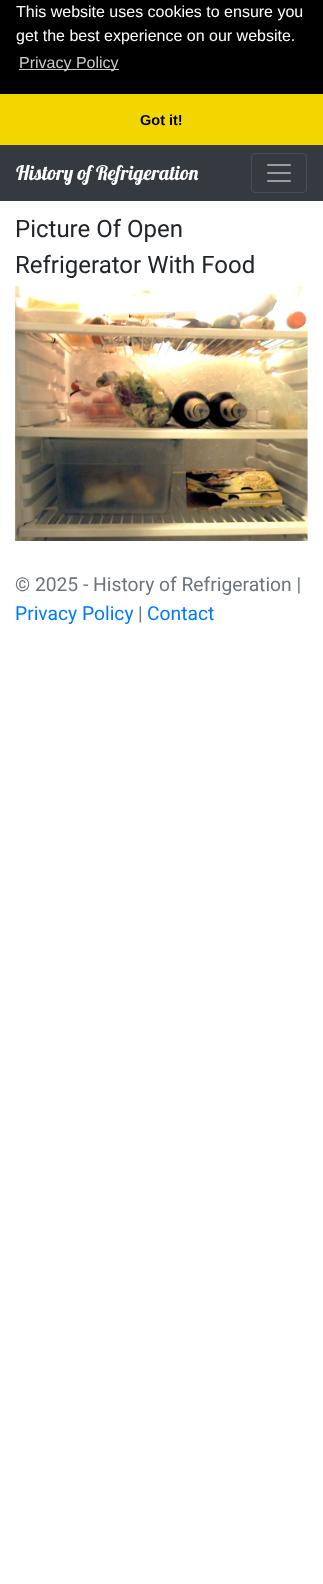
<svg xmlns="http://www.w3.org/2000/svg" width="323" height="1584">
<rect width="100%" height="100%" fill="#fff"/>
<rect width="323" height="94" fill="#000"/>
<text x="16" y="17" style="font-family:Liberation Sans;font-size:16px;fill:#fff">This website uses cookies to ensure you</text>
<text x="16" y="41" style="font-family:Liberation Sans;font-size:16px;fill:#fff">get the best experience on our website.</text>
<rect x="19" y="69" width="100" height="1" fill="#ccc"/>
<text x="19" y="68" style="font-family:Liberation Sans;font-size:16px;fill:#ccc">Privacy Policy</text>
<rect y="94" width="323" height="51" fill="#f1d600"/>
<text x="140" y="125" style="font-family:Liberation Sans;font-size:14.5px;font-weight:bold;fill:#000">Got it!</text>
<rect y="145" width="323" height="56" fill="#343a40"/>
<text x="16" y="180" style="font-family:Lobster;font-size:20px;fill:#fff">History of Refrigeration</text>
<rect x="251.5" y="153.5" width="55" height="39" rx="3.5" fill="none" stroke="#484e53"/>
<image x="267" y="164" width="24" height="18" href="media/1.png"/>
<text x="15" y="237" style="font-family:Roboto;font-size:24px;fill:#212529">Picture Of Open</text>
<text x="15" y="273" style="font-family:Roboto;font-size:24px;fill:#212529">Refrigerator With Food</text>
<image x="15" y="286" width="293" height="255" href="media/2.png"/>
<text x="15" y="591" style="font-family:Roboto;font-size:19.25px;fill:#6c757d">© 2025 - History of Refrigeration |</text>
<text x="15" y="620" style="font-family:Roboto;font-size:19.25px;fill:#007bff">Privacy Policy</text>
<text x="138" y="620" style="font-family:Roboto;font-size:19.25px;fill:#6c757d">|</text>
<text x="147" y="620" style="font-family:Roboto;font-size:19.25px;fill:#007bff">Contact</text>
</svg>
